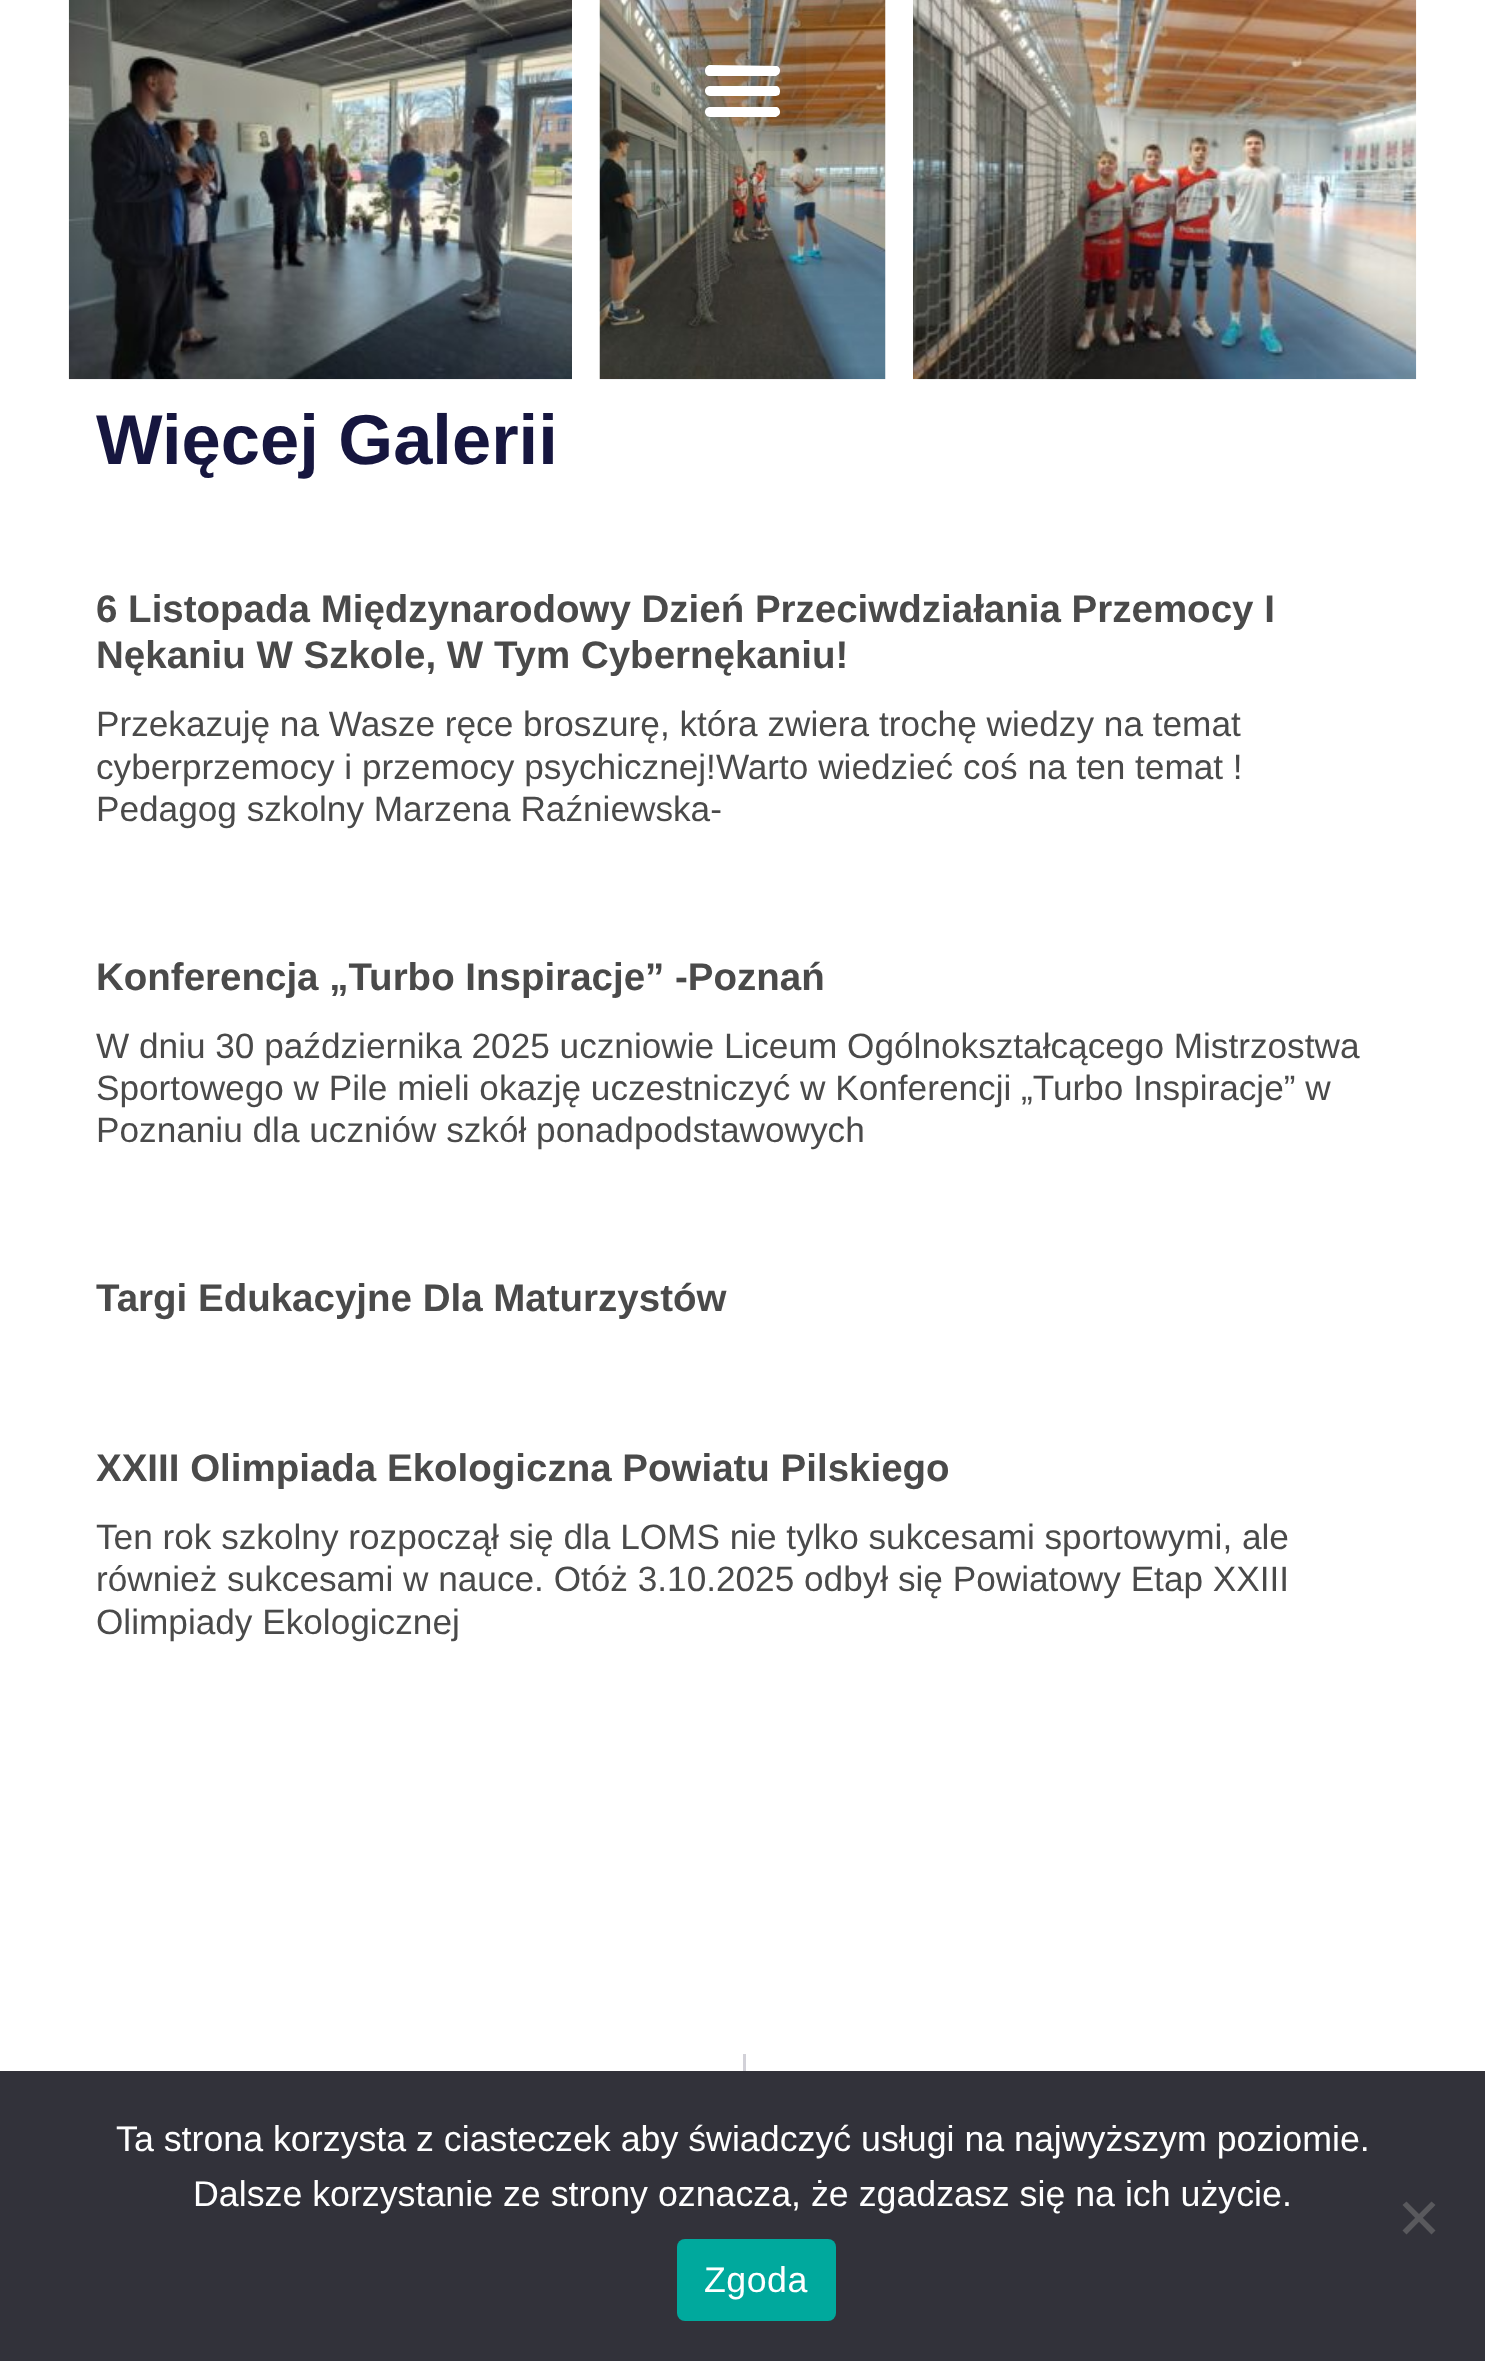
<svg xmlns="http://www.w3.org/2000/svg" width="1485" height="2361">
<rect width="100%" height="100%" fill="#fff"/>
<image x="599" y="0" width="287" height="380" href="media/2.png"/>
<rect x="682" y="28" width="124" height="123" fill="#0000000f"/>
<path d="M710 76h66l3-2c2-3 1-7-2-8l-68-1c-6 2-5 11 1 11zm0 20h66l3-1c2-3 1-8-2-9h-68c-6 1-5 10 1 10zm0 21h66l3-2c2-2 1-7-2-8h-68c-6 1-5 10 1 10z" fill="#fff"/>
<image x="68" y="0" width="504" height="380" href="media/1.png"/>
<image x="913" y="0" width="504" height="380" href="media/3.png"/>
<text x="96" y="464" style="font-family:Liberation Sans;font-size:70.5px;font-weight:bold;fill:#16163f">Więcej Galerii</text>
<text x="96" y="622" style="font-family:Liberation Sans;font-size:38.5px;font-weight:bold;fill:#4a4a4a">6 Listopada Międzynarodowy Dzień Przeciwdziałania Przemocy I</text>
<text x="96" y="668" style="font-family:Liberation Sans;font-size:38.5px;font-weight:bold;fill:#4a4a4a">Nękaniu W Szkole, W Tym Cybernękaniu!</text>
<text x="96" y="736" style="font-family:Liberation Sans;font-size:35.2px;fill:#4a4a4a">Przekazuję na Wasze ręce broszurę, która zwiera trochę wiedzy na temat</text>
<text x="96" y="779" style="font-family:Liberation Sans;font-size:35.2px;fill:#4a4a4a">cyberprzemocy i przemocy psychicznej!Warto wiedzieć coś na ten temat !</text>
<text x="96" y="821" style="font-family:Liberation Sans;font-size:35.2px;fill:#4a4a4a">Pedagog szkolny Marzena Raźniewska-</text>
<text x="96" y="990" style="font-family:Liberation Sans;font-size:38.5px;font-weight:bold;fill:#4a4a4a">Konferencja „Turbo Inspiracje” -Poznań</text>
<text x="96" y="1058" style="font-family:Liberation Sans;font-size:35.2px;fill:#4a4a4a">W dniu 30 października 2025 uczniowie Liceum Ogólnokształcącego Mistrzostwa</text>
<text x="96" y="1100" style="font-family:Liberation Sans;font-size:35.2px;fill:#4a4a4a">Sportowego w Pile mieli okazję uczestniczyć w Konferencji „Turbo Inspiracje” w</text>
<text x="96" y="1142" style="font-family:Liberation Sans;font-size:35.2px;fill:#4a4a4a">Poznaniu dla uczniów szkół ponadpodstawowych</text>
<text x="96" y="1311" style="font-family:Liberation Sans;font-size:38.5px;font-weight:bold;fill:#4a4a4a">Targi Edukacyjne Dla Maturzystów</text>
<text x="96" y="1481" style="font-family:Liberation Sans;font-size:38.5px;font-weight:bold;fill:#4a4a4a">XXIII Olimpiada Ekologiczna Powiatu Pilskiego</text>
<text x="96" y="1549" style="font-family:Liberation Sans;font-size:35.2px;fill:#4a4a4a">Ten rok szkolny rozpoczął się dla LOMS nie tylko sukcesami sportowymi, ale</text>
<text x="96" y="1591" style="font-family:Liberation Sans;font-size:35.2px;fill:#4a4a4a">również sukcesami w nauce. Otóż 3.10.2025 odbył się Powiatowy Etap XXIII</text>
<text x="96" y="1634" style="font-family:Liberation Sans;font-size:35.2px;fill:#4a4a4a">Olimpiady Ekologicznej</text>
<rect x="743" y="2054" width="3" height="17" fill="#d2d1d8"/>
<rect y="2071" width="1485" height="290" fill="#32323a"/>
<text x="116" y="2151" style="font-family:Liberation Sans;font-size:35.75px;fill:#fff">Ta strona korzysta z ciasteczek aby świadczyć usługi na najwyższym poziomie.</text>
<text x="193" y="2206" style="font-family:Liberation Sans;font-size:35.75px;fill:#fff">Dalsze korzystanie ze strony oznacza, że zgadzasz się na ich użycie.</text>
<path d="M1431.5 2201.5l4 3.5l-29 29.5l-4-4z" fill="#59595d"/>
<path d="M1402.5 2205l4-3.5l29 29l-4 4z" fill="#59595d"/>
<rect x="677" y="2239" width="159" height="82" rx="8" fill="#00a99d"/>
<text x="704" y="2292" style="font-family:Liberation Sans;font-size:35.75px;letter-spacing:0.5px;fill:#fff">Zgoda</text>
</svg>
